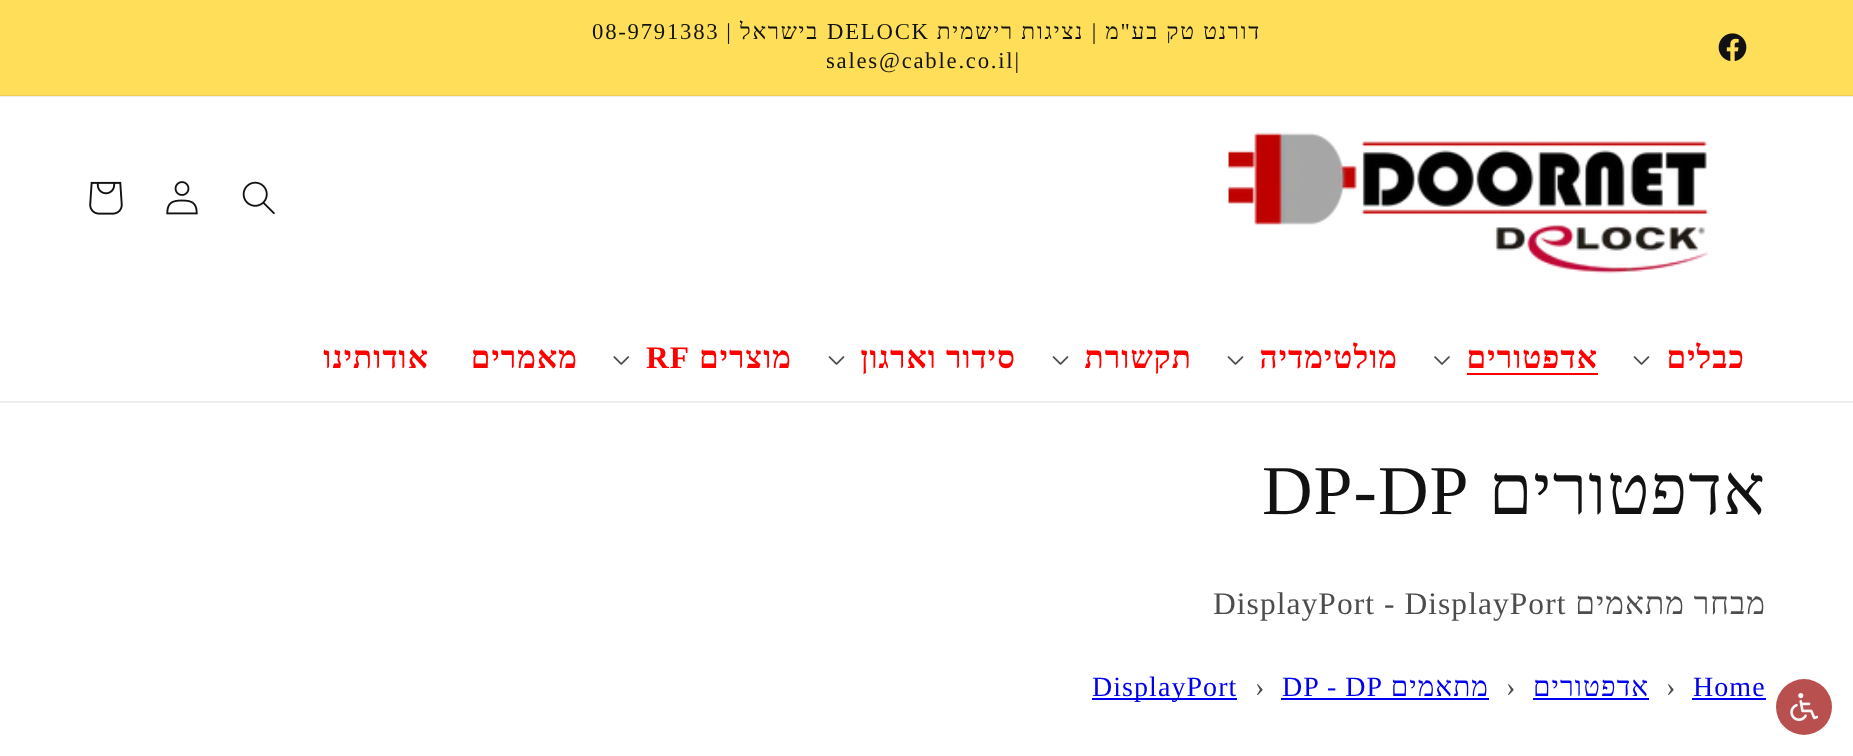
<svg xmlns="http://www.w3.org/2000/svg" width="1853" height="756">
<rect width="100%" height="100%" fill="#fff"/>
<rect y="96" width="1853" height="1" fill="#ececec"/>
<rect width="1853" height="95" fill="#ffde59"/>
<rect y="95" width="1853" height="1" fill="#ecce53"/>
<image x="1718" y="33" width="29" height="28" href="media/1.png"/>
<text x="1261" y="39" style="font-family:Liberation Serif;font-size:22.75px;letter-spacing:1.75px;direction:rtl;fill:#121212">דורנט טק בע"מ</text>
<text x="1098" y="39" style="font-family:Liberation Serif;font-size:22.75px;letter-spacing:1.75px;direction:rtl;fill:#121212">| נציגות רישמית</text>
<text x="827" y="39" style="font-family:Liberation Serif;font-size:22.75px;letter-spacing:1.75px;fill:#121212">DELOCK</text>
<text x="819" y="39" style="font-family:Liberation Serif;font-size:22.75px;letter-spacing:1.75px;direction:rtl;fill:#121212">בישראל |</text>
<text x="592" y="39" style="font-family:Liberation Serif;font-size:22.75px;letter-spacing:1.75px;fill:#121212">08-9791383</text>
<text x="826" y="68" style="font-family:Liberation Serif;font-size:22.75px;letter-spacing:1.75px;fill:#121212">sales@cable.co.il|</text>
<rect y="401" width="1853" height="2" fill="#ececec"/>
<image x="1228" y="132" width="481" height="142" href="media/2.png"/>
<image x="242" y="181" width="33" height="34" href="media/3.png"/>
<image x="166" y="181" width="32" height="34" href="media/4.png"/>
<image x="89" y="181" width="34" height="34" href="media/5.png"/>
<text x="1745" y="368" style="font-family:Liberation Serif;font-size:31.5px;font-weight:bold;letter-spacing:1.05px;direction:rtl;fill:#f00">כבלים</text>
<image x="1633" y="356" width="17" height="9" href="media/6.png"/>
<text x="1598" y="368" style="font-family:Liberation Serif;font-size:31.5px;font-weight:bold;letter-spacing:1.05px;direction:rtl;fill:#f00">אדפטורים</text>
<rect x="1467" y="373" width="131" height="2" fill="#f00"/>
<image x="1434" y="356" width="16" height="9" href="media/7.png"/>
<text x="1398" y="368" style="font-family:Liberation Serif;font-size:31.5px;font-weight:bold;letter-spacing:1.05px;direction:rtl;fill:#f00">מולטימדיה</text>
<image x="1227" y="356" width="17" height="9" href="media/6.png"/>
<text x="1192" y="368" style="font-family:Liberation Serif;font-size:31.5px;font-weight:bold;letter-spacing:1.05px;direction:rtl;fill:#f00">תקשורת</text>
<image x="1052" y="356" width="17" height="9" href="media/6.png"/>
<text x="1016" y="368" style="font-family:Liberation Serif;font-size:31.5px;font-weight:bold;letter-spacing:1.05px;direction:rtl;fill:#f00">סידור וארגון</text>
<image x="828" y="356" width="17" height="9" href="media/6.png"/>
<text x="792" y="368" style="font-family:Liberation Serif;font-size:31.5px;font-weight:bold;letter-spacing:1.05px;direction:rtl;fill:#f00">מוצרים</text>
<text x="646" y="368" style="font-family:Liberation Serif;font-size:31.5px;font-weight:bold;letter-spacing:1.05px;fill:#f00">RF</text>
<image x="613" y="356" width="16" height="9" href="media/8.png"/>
<text x="578" y="368" style="font-family:Liberation Serif;font-size:31.5px;font-weight:bold;letter-spacing:1.05px;direction:rtl;fill:#f00">מאמרים</text>
<text x="429" y="368" style="font-family:Liberation Serif;font-size:31.5px;font-weight:bold;letter-spacing:1.05px;direction:rtl;fill:#f00">אודותינו</text>
<circle cx="1804" cy="707" r="28" fill="#b95050"/>
<image x="1790" y="693" width="28" height="28" href="media/9.png"/>
<text x="1766" y="514" style="font-family:Liberation Serif;font-size:70px;letter-spacing:1.05px;direction:rtl;fill:#121212">אדפטורים</text>
<text x="1262" y="514" style="font-family:Liberation Serif;font-size:70px;letter-spacing:1.05px;fill:#121212">DP-DP</text>
<text x="1766" y="614" style="font-family:Liberation Serif;font-size:31.5px;letter-spacing:1.05px;direction:rtl;fill:#4d4d4d">מבחר מתאמים</text>
<text x="1213" y="614" style="font-family:Liberation Serif;font-size:31.5px;letter-spacing:1.05px;fill:#4d4d4d">DisplayPort - DisplayPort</text>
<text x="1693" y="696" style="font-family:Liberation Serif;font-size:28px;letter-spacing:1.05px;fill:#00e">Home</text>
<rect x="1692" y="698" width="74" height="2" fill="#00e"/>
<text x="1666" y="696" style="font-family:Liberation Serif;font-size:28px;letter-spacing:1.05px;fill:#4d4d4d">›</text>
<text x="1649" y="696" style="font-family:Liberation Serif;font-size:28px;letter-spacing:1.05px;direction:rtl;fill:#00e">אדפטורים</text>
<rect x="1533" y="698" width="116" height="2" fill="#00e"/>
<text x="1506" y="696" style="font-family:Liberation Serif;font-size:28px;letter-spacing:1.05px;fill:#4d4d4d">›</text>
<text x="1489" y="696" style="font-family:Liberation Serif;font-size:28px;letter-spacing:1.05px;direction:rtl;fill:#00e">מתאמים</text>
<rect x="1281" y="698" width="208" height="2" fill="#00e"/>
<text x="1282" y="696" style="font-family:Liberation Serif;font-size:28px;letter-spacing:1.05px;fill:#00e">DP - DP</text>
<text x="1255" y="696" style="font-family:Liberation Serif;font-size:28px;letter-spacing:1.05px;fill:#4d4d4d">›</text>
<rect x="1092" y="698" width="145" height="2" fill="#00e"/>
<text x="1092" y="696" style="font-family:Liberation Serif;font-size:28px;letter-spacing:1.05px;fill:#00e">DisplayPort</text>
</svg>
